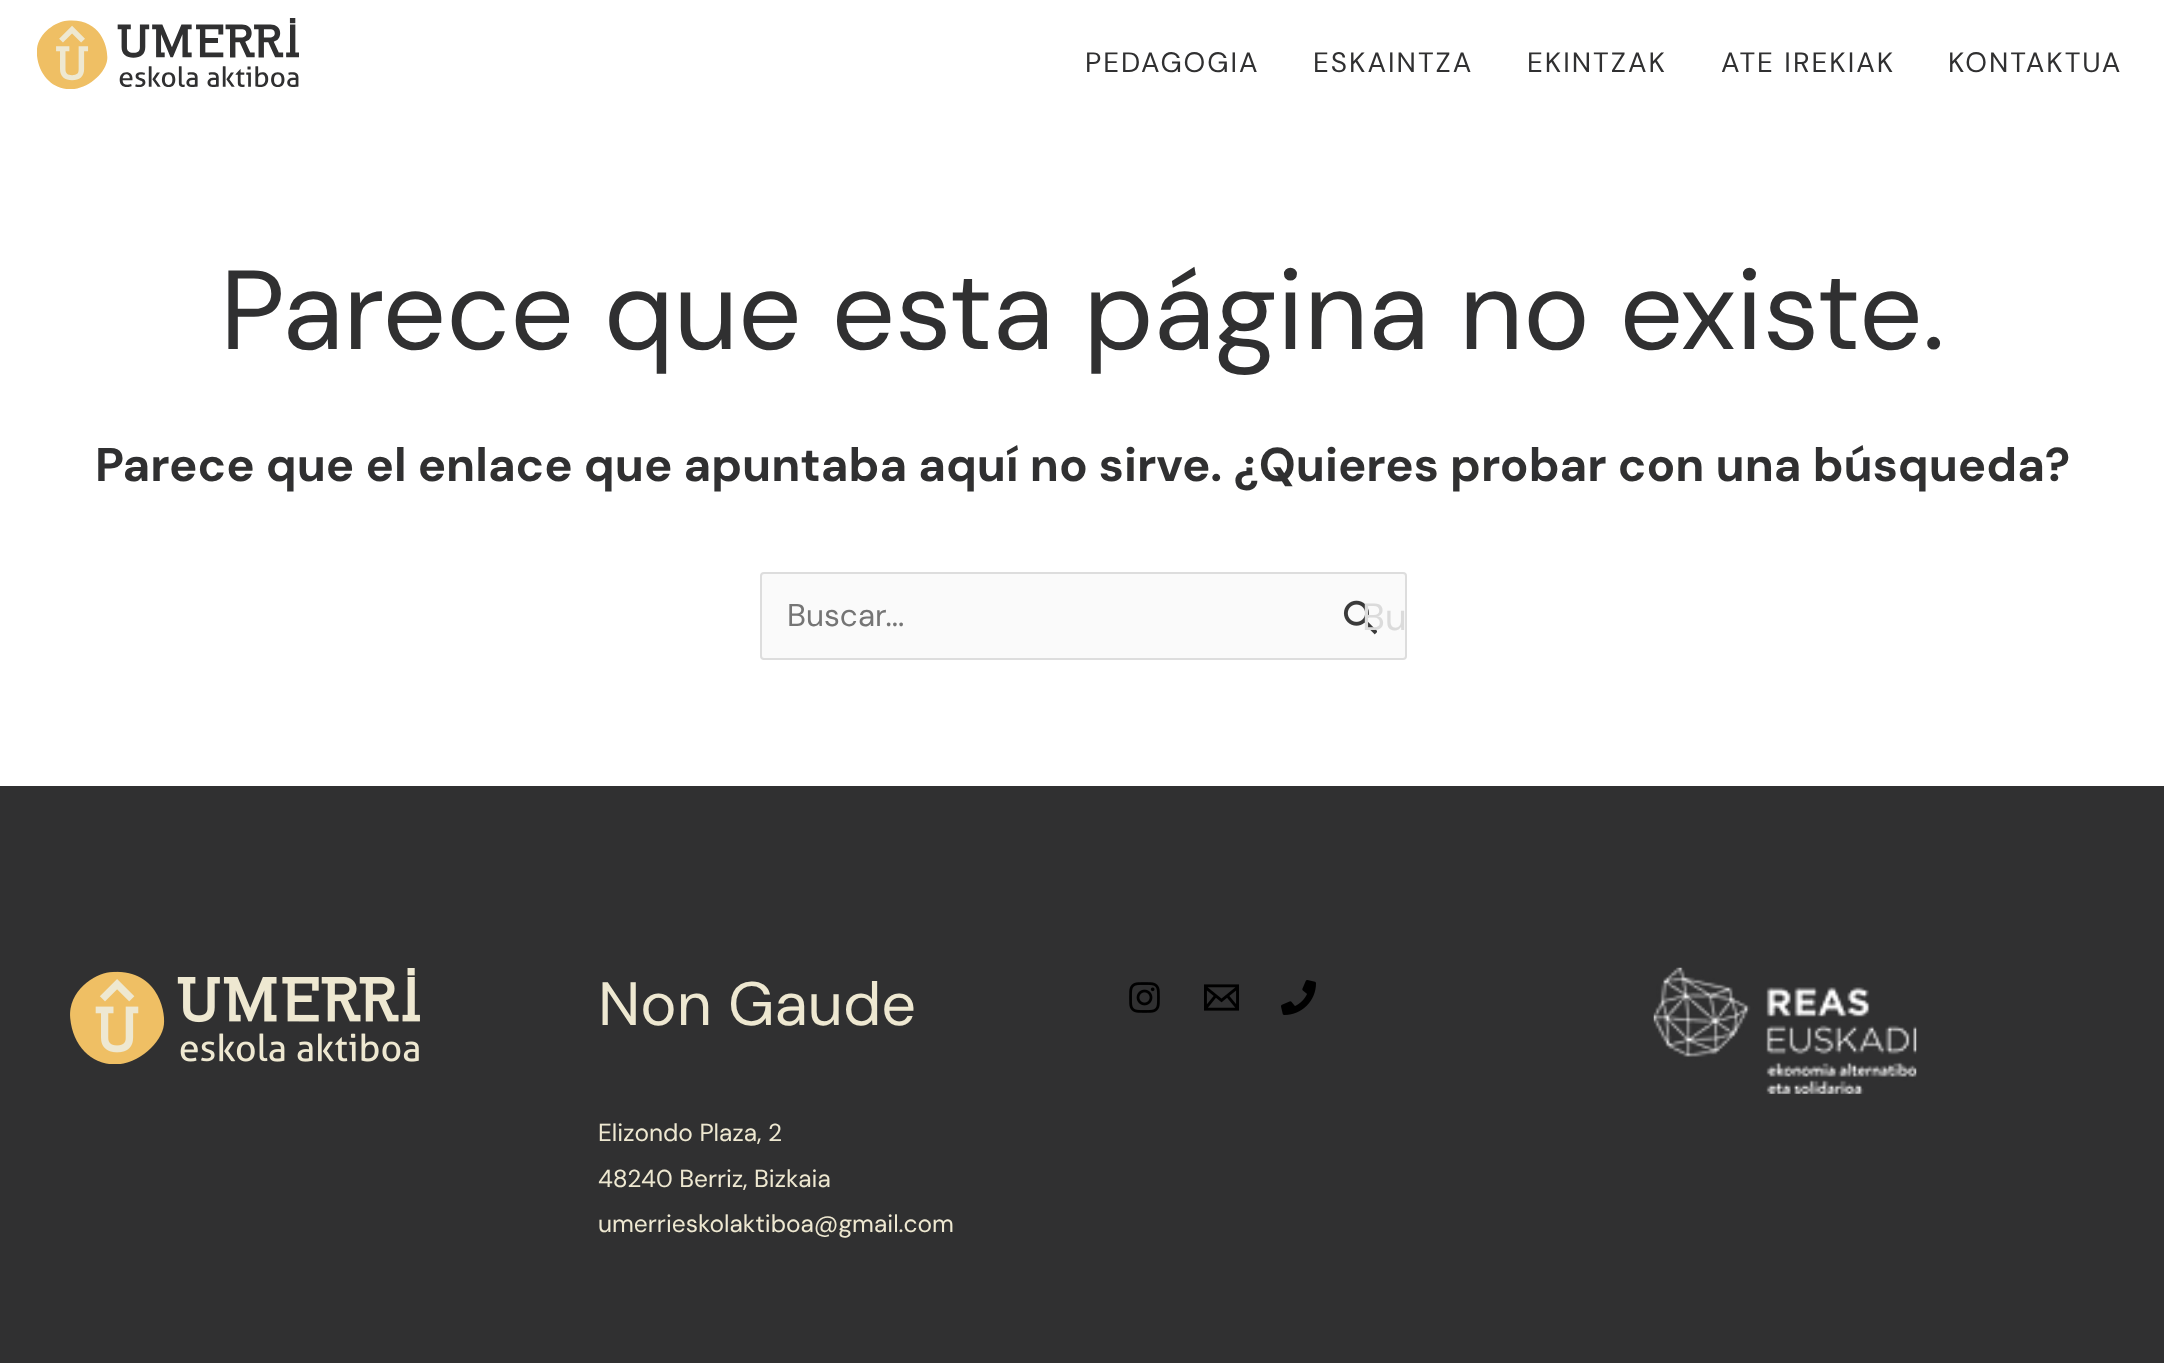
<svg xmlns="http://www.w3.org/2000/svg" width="2164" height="1363">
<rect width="100%" height="100%" fill="#fff"/>
<image x="37" y="18" width="262" height="71" href="media/1.png"/>
<text x="1085" y="72" style="font-family:DM Sans;font-size:28px;letter-spacing:2px;fill:#303031">PEDAGOGIA</text>
<text x="1313" y="72" style="font-family:DM Sans;font-size:28px;letter-spacing:2px;fill:#303031">ESKAINTZA</text>
<text x="1527" y="72" style="font-family:DM Sans;font-size:28px;letter-spacing:2px;fill:#303031">EKINTZAK</text>
<text x="1721" y="72" style="font-family:DM Sans;font-size:28px;letter-spacing:2px;fill:#303031">ATE IREKIAK</text>
<text x="1948" y="72" style="font-family:DM Sans;font-size:28px;letter-spacing:2px;fill:#303031">KONTAKTUA</text>
<text x="220" y="349" style="font-family:DM Sans;font-size:112px;fill:#303031">Parece que esta página no existe.</text>
<text x="95" y="481" style="font-family:DM Sans;font-size:47.25px;font-weight:bold;fill:#303031">Parece que el enlace que apuntaba aquí no sirve. ¿Quieres probar con una búsqueda?</text>
<rect x="761" y="573" width="645" height="86" rx="3" fill="#fafafa" stroke="#ddd" stroke-width="2"/>
<text x="787" y="626" style="font-family:DM Sans;font-size:31.5px;fill:#757575">Buscar...</text>
<image x="1343" y="600" width="34" height="35" href="media/2.png"/>
<text x="1362" y="630" style="font-family:DM Sans;font-size:38px;fill:#dbdbdb">Bu</text>
<rect y="786" width="2164" height="577" fill="#303031"/>
<image x="70" y="968" width="350" height="96" href="media/3.png"/>
<text x="598" y="1025" style="font-family:DM Sans;font-size:61.25px;fill:#eee8d1">Non Gaude</text>
<text x="598" y="1141" style="font-family:DM Sans;font-size:24.5px;fill:#eee8d1">Elizondo Plaza, 2</text>
<text x="598" y="1187" style="font-family:DM Sans;font-size:24.5px;fill:#eee8d1">48240 Berriz, Bizkaia</text>
<text x="598" y="1232" style="font-family:DM Sans;font-size:24.5px;fill:#eee8d1">umerrieskolaktiboa@gmail.com</text>
<image x="1129" y="982" width="31" height="31" href="media/4.png"/>
<image x="1204" y="984" width="35" height="27" href="media/5.png"/>
<image x="1281" y="980" width="35" height="35" href="media/6.png"/>
<image x="1653" y="967" width="264" height="127" href="media/7.png"/>
</svg>
